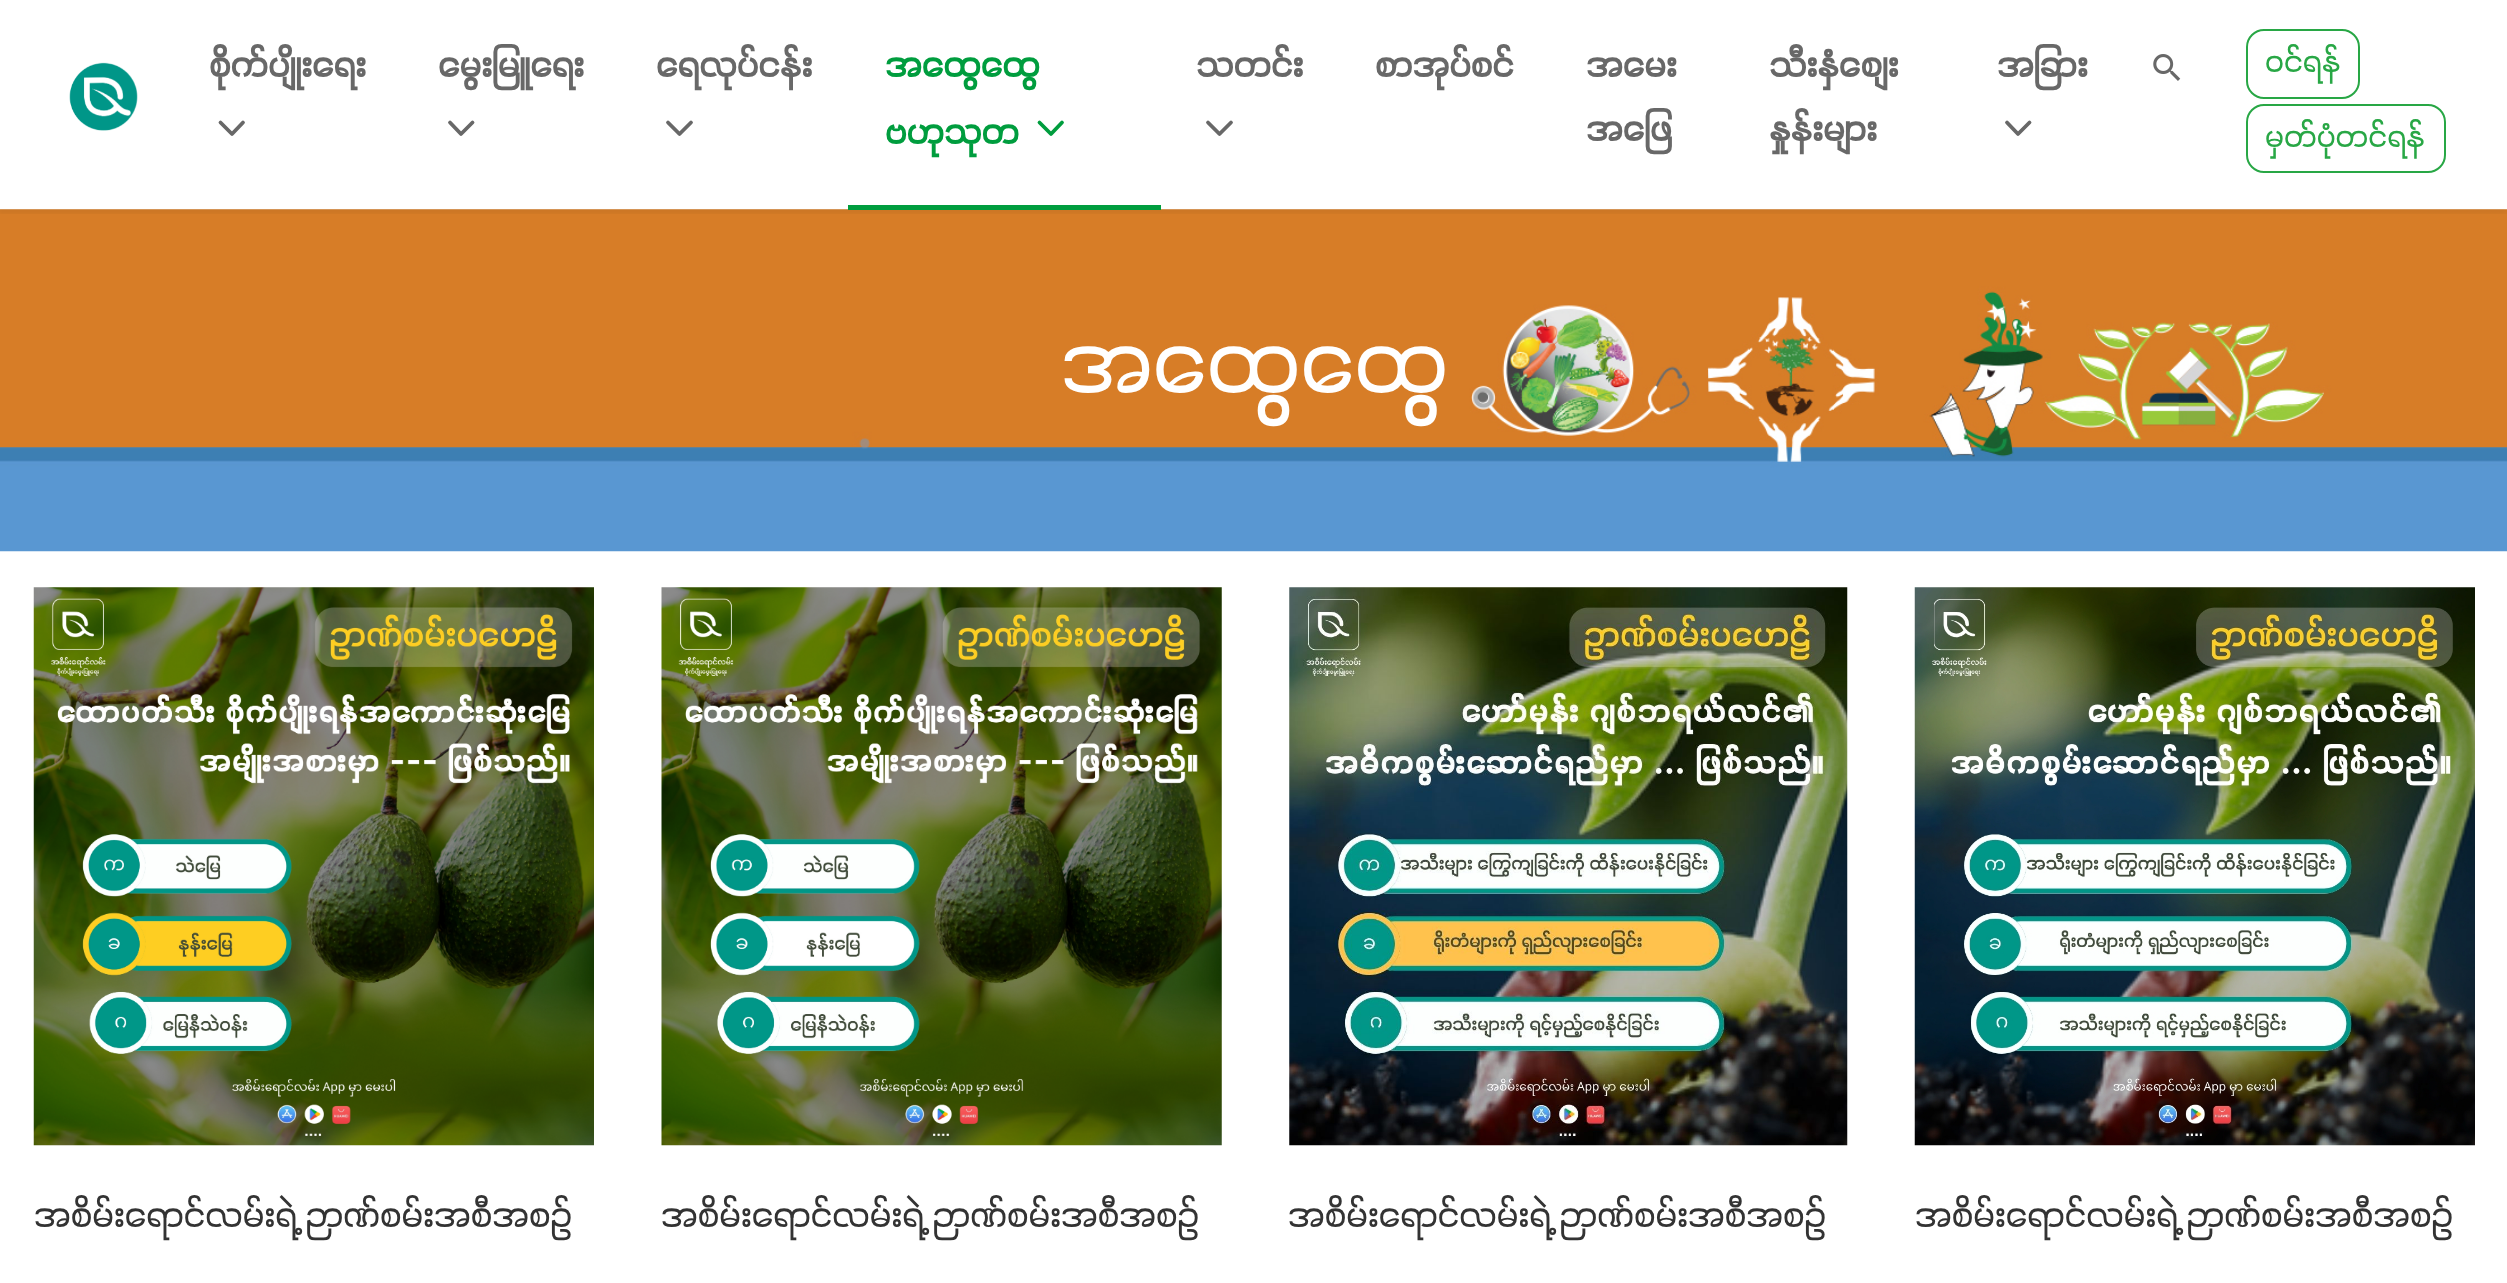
<svg xmlns="http://www.w3.org/2000/svg" width="2507" height="1283">
<defs>
<clipPath id="clip1"><rect x="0" y="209" width="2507" height="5"/></clipPath>
</defs>
<rect width="100%" height="100%" fill="#fff"/>
<image x="0" y="209" width="2507" height="343" href="media/3.png"/>
<g clip-path="url(#clip1)">
<rect x="-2" y="5" width="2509" height="209" fill="#0000000d" filter="blur(2px)"/>
</g>
<image x="69" y="62" width="69" height="69" href="media/1.png"/>
<text x="209" y="77" style="font-family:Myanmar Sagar;font-size:36px;font-weight:bold;fill:#686868">စိုက်ပျိုးရေး</text>
<path d="M220.5 122.5l11.5 11.5l11-11.5" fill="none" stroke="#686868" stroke-width="3.8" stroke-linecap="round" stroke-linejoin="round"/>
<text x="438" y="77" style="font-family:Myanmar Sagar;font-size:36px;font-weight:bold;fill:#686868">မွေးမြူရေး</text>
<path d="M450 122.5l11 11.5l11.5-11.5" fill="none" stroke="#686868" stroke-width="3.8" stroke-linecap="round" stroke-linejoin="round"/>
<text x="656" y="77" style="font-family:Myanmar Sagar;font-size:36px;font-weight:bold;fill:#686868">ရေလုပ်ငန်း</text>
<path d="M668 122.5l11.5 11.5l11.5-11.5" fill="none" stroke="#686868" stroke-width="3.8" stroke-linecap="round" stroke-linejoin="round"/>
<rect x="848" y="205" width="313" height="5" fill="#009d3e"/>
<text x="885" y="77" style="font-family:Myanmar Sagar;font-size:36px;font-weight:bold;fill:#009d3e">အထွေထွေ</text>
<text x="885" y="144" style="font-family:Myanmar Sagar;font-size:36px;font-weight:bold;fill:#009d3e">ဗဟုသုတ</text>
<path d="M1039.5 122.5l11.5 11.5l11-11.5" fill="none" stroke="#009d3e" stroke-width="3.8" stroke-linecap="round" stroke-linejoin="round"/>
<text x="1196" y="77" style="font-family:Myanmar Sagar;font-size:36px;font-weight:bold;fill:#686868">သတင်း</text>
<path d="M1208 122.5l11.5 11.5l11.5-11.5" fill="none" stroke="#686868" stroke-width="3.8" stroke-linecap="round" stroke-linejoin="round"/>
<text x="1375" y="77" style="font-family:Myanmar Sagar;font-size:36px;font-weight:bold;fill:#686868">စာအုပ်စင်</text>
<text x="1586" y="77" style="font-family:Myanmar Sagar;font-size:36px;font-weight:bold;fill:#686868">အမေး</text>
<text x="1586" y="141" style="font-family:Myanmar Sagar;font-size:36px;font-weight:bold;fill:#686868">အဖြေ</text>
<text x="1769" y="77" style="font-family:Myanmar Sagar;font-size:36px;font-weight:bold;fill:#686868">သီးနှံစျေး</text>
<text x="1769" y="141" style="font-family:Myanmar Sagar;font-size:36px;font-weight:bold;fill:#686868">နှုန်းများ</text>
<text x="1997" y="77" style="font-family:Myanmar Sagar;font-size:36px;font-weight:bold;fill:#686868">အခြား</text>
<path d="M2007 122.5l11 11.5l11.5-11.5" fill="none" stroke="#686868" stroke-width="3.8" stroke-linecap="round" stroke-linejoin="round"/>
<image x="2153" y="54" width="28" height="27" href="media/2.png"/>
<rect x="2247" y="30" width="112" height="68" rx="17" fill="none" stroke="#28a745" stroke-width="2"/>
<text x="2265" y="72" style="font-family:Myanmar Sagar;font-size:31.5px;fill:#28a745">ဝင်ရန်</text>
<rect x="2247" y="105" width="198" height="67" rx="17" fill="none" stroke="#28a745" stroke-width="2"/>
<text x="2265" y="147" style="font-family:Myanmar Sagar;font-size:31.5px;fill:#28a745">မှတ်ပုံတင်ရန်</text>
<text x="1061" y="393" style="font-family:Myanmar Sagar;font-size:90px;fill:#fff">အထွေထွေ</text>
<image x="33" y="587" width="561" height="559" href="media/4.png"/>
<text x="34" y="1227" style="font-family:Myanmar Sagar;font-size:36px;fill:#333">အစိမ်းရောင်လမ်းရဲ့ ဉာဏ်စမ်းအစီအစဉ်</text>
<image x="661" y="587" width="561" height="559" href="media/5.png"/>
<text x="661" y="1227" style="font-family:Myanmar Sagar;font-size:36px;fill:#333">အစိမ်းရောင်လမ်းရဲ့ ဉာဏ်စမ်းအစီအစဉ်</text>
<image x="1289" y="587" width="559" height="559" href="media/6.png"/>
<text x="1288" y="1227" style="font-family:Myanmar Sagar;font-size:36px;fill:#333">အစိမ်းရောင်လမ်းရဲ့ ဉာဏ်စမ်းအစီအစဉ်</text>
<image x="1914" y="587" width="561" height="559" href="media/7.png"/>
<text x="1915" y="1227" style="font-family:Myanmar Sagar;font-size:36px;fill:#333">အစိမ်းရောင်လမ်းရဲ့ ဉာဏ်စမ်းအစီအစဉ်</text>
</svg>
